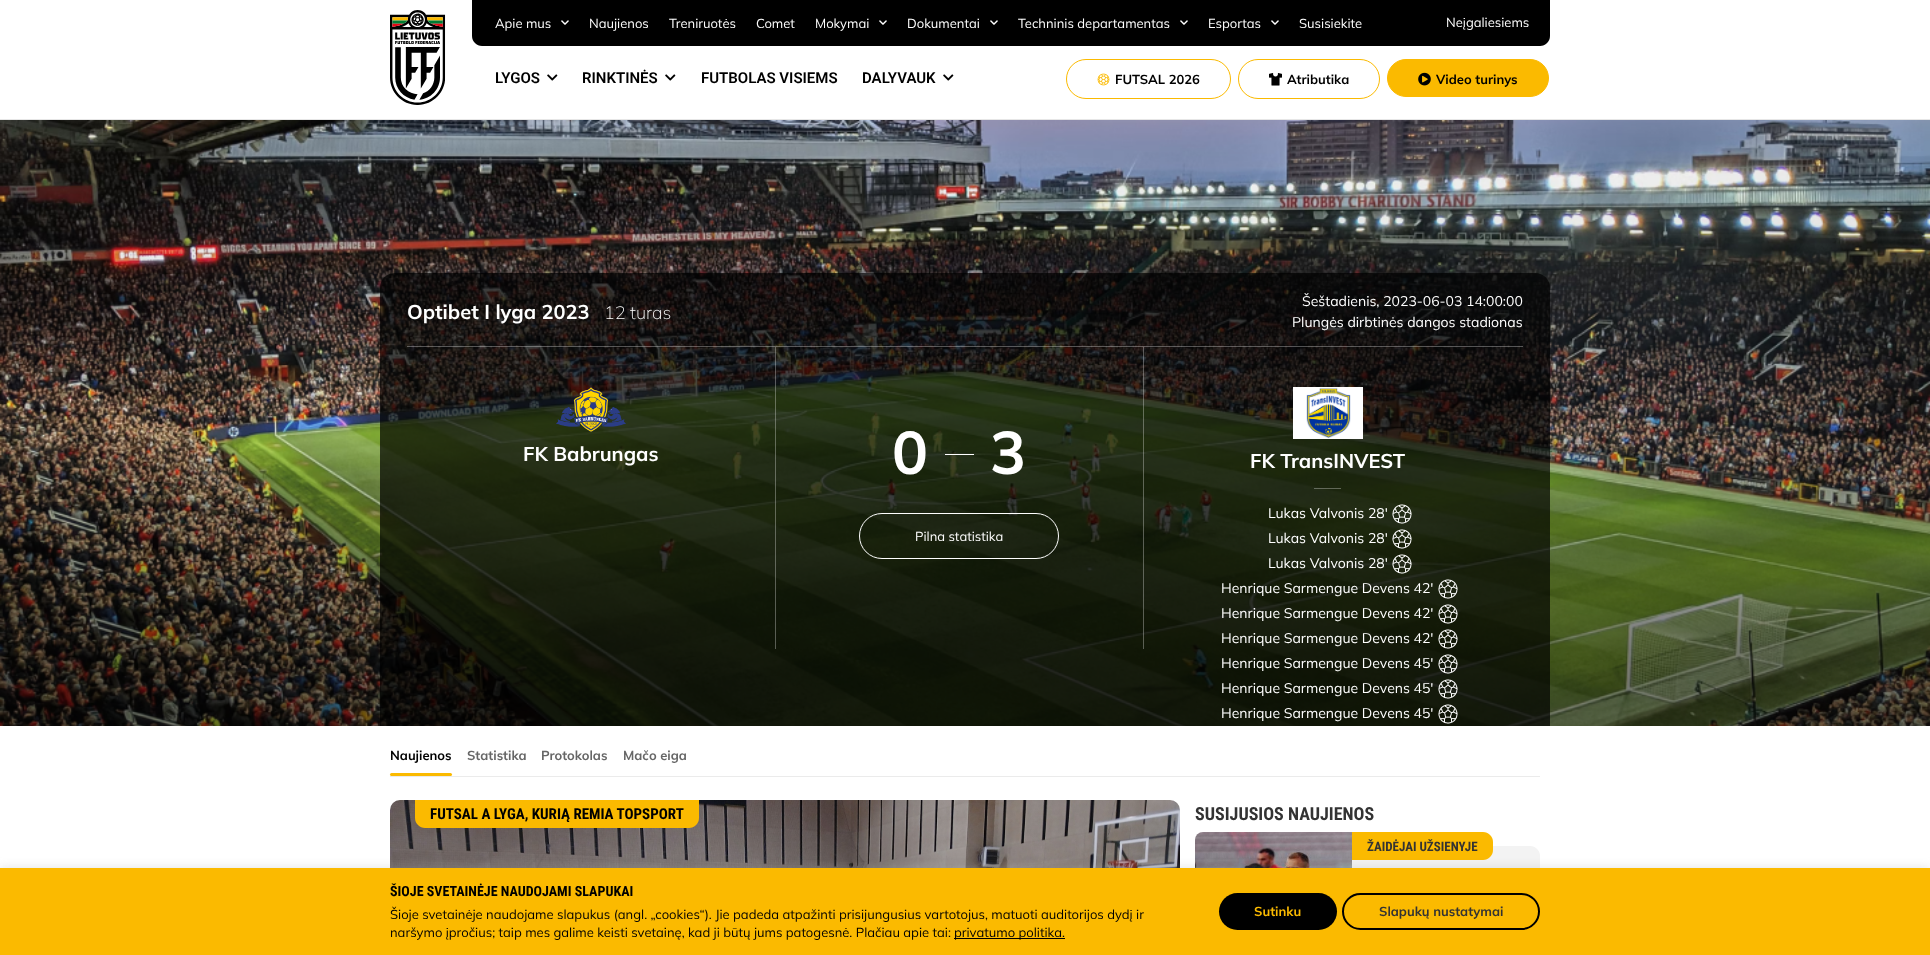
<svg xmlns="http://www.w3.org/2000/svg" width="1930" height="955">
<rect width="100%" height="100%" fill="#fff"/>
<rect y="119" width="1930" height="1" fill="#e6e6e6"/>
<image x="390" y="10" width="56" height="95" href="media/1.png"/>
<path d="M472 0h1078v36c0 5.5-4.5 10-10 10h-1058c-5.5 0-10-4.5-10-10z" fill="#000"/>
<text x="495" y="28" style="font-family:Mulish;font-size:13px;fill:#fff">Apie mus</text>
<image x="561" y="20" width="8" height="5" href="media/2.png"/>
<text x="589" y="28" style="font-family:Mulish;font-size:13px;fill:#fff">Naujienos</text>
<text x="669" y="28" style="font-family:Mulish;font-size:13px;fill:#fff">Treniruotės</text>
<text x="756" y="28" style="font-family:Mulish;font-size:13px;fill:#fff">Comet</text>
<text x="815" y="28" style="font-family:Mulish;font-size:13px;fill:#fff">Mokymai</text>
<image x="879" y="20" width="8" height="5" href="media/2.png"/>
<text x="907" y="28" style="font-family:Mulish;font-size:13px;fill:#fff">Dokumentai</text>
<image x="990" y="20" width="8" height="5" href="media/2.png"/>
<text x="1018" y="28" style="font-family:Mulish;font-size:13px;fill:#fff">Techninis departamentas</text>
<image x="1180" y="20" width="8" height="5" href="media/2.png"/>
<text x="1208" y="28" style="font-family:Mulish;font-size:13px;fill:#fff">Esportas</text>
<image x="1271" y="20" width="8" height="5" href="media/2.png"/>
<text x="1299" y="28" style="font-family:Mulish;font-size:13px;fill:#fff">Susisiekite</text>
<text x="1446" y="27" style="font-family:Mulish;font-size:13px;fill:#fff">Neįgaliesiems</text>
<text x="495" y="83" style="font-family:Roboto;font-size:15px;font-weight:600;fill:#000">LYGOS</text>
<image x="547" y="74" width="11" height="7" href="media/3.png"/>
<text x="582" y="83" style="font-family:Roboto;font-size:15px;font-weight:600;fill:#000">RINKTINĖS</text>
<image x="665" y="74" width="11" height="7" href="media/3.png"/>
<text x="701" y="83" style="font-family:Roboto;font-size:15px;font-weight:600;fill:#000">FUTBOLAS VISIEMS</text>
<text x="862" y="83" style="font-family:Roboto;font-size:15px;font-weight:600;fill:#000">DALYVAUK</text>
<image x="943" y="74" width="11" height="7" href="media/3.png"/>
<rect x="1066.5" y="59.5" width="164" height="39" rx="19.5" fill="none" stroke="#fbba00"/>
<image x="1097" y="73" width="13" height="13" href="media/4.png"/>
<text x="1115" y="84" style="font-family:Mulish;font-size:13px;font-weight:bold;fill:#000">FUTSAL 2026</text>
<rect x="1238.5" y="59.5" width="141" height="39" rx="19.5" fill="none" stroke="#fbba00"/>
<image x="1269" y="73" width="13" height="13" href="media/5.png"/>
<text x="1287" y="84" style="font-family:Mulish;font-size:13px;font-weight:bold;fill:#000">Atributika</text>
<rect x="1387.5" y="59.5" width="161" height="37" rx="18.5" fill="#fbba00" stroke="#fbba00"/>
<image x="1418" y="72" width="13" height="14" href="media/6.png"/>
<text x="1436" y="84" style="font-family:Mulish;font-size:13px;font-weight:bold;fill:#000">Video turinys</text>
<image x="0" y="120" width="1930" height="606" href="media/7.png"/>
<path d="M395 273h1140c8.5 0 15 6.5 15 15v438h-1170v-438c0-8.5 6.5-15 15-15z" fill="#000000b0"/>
<rect x="407" y="346" width="1116" height="1" fill="#ffffff4f"/>
<text x="407" y="319" style="font-family:Mulish;font-size:20px;font-weight:bold;fill:#fff">Optibet I lyga 2023</text>
<text x="604" y="319" style="font-family:Mulish;font-size:18px;font-weight:200;fill:#fff">12 turas</text>
<text x="1302" y="306" style="font-family:Mulish;font-size:14px;fill:#fff">Šeštadienis, 2023-06-03 14:00:00</text>
<text x="1292" y="327" style="font-family:Mulish;font-size:14px;fill:#fff">Plungės dirbtinės dangos stadionas</text>
<image x="556" y="387" width="70" height="45" href="media/8.png"/>
<text x="523" y="461" style="font-family:Mulish;font-size:20px;font-weight:bold;fill:#fff">FK Babrungas</text>
<rect x="1143" y="347" width="1" height="302" fill="#ffffff4f"/>
<rect x="775" y="347" width="1" height="302" fill="#ffffff4f"/>
<text x="892" y="474" style="font-family:Mulish;font-size:60px;font-weight:bold;fill:#fff">0</text>
<rect x="945" y="454" width="29" height="1" fill="#fff"/>
<text x="990" y="474" style="font-family:Mulish;font-size:60px;font-weight:bold;fill:#fff">3</text>
<rect x="859.5" y="513.5" width="199" height="45" rx="22.5" fill="none" stroke="#fff"/>
<text x="915" y="541" style="font-family:Mulish;font-size:13px;fill:#fff">Pilna statistika</text>
<image x="1293" y="387" width="70" height="52" href="media/9.png"/>
<text x="1250" y="468" style="font-family:Mulish;font-size:20px;font-weight:bold;fill:#fff">FK TransINVEST</text>
<rect x="1314" y="488" width="27" height="1" fill="#ffffff4f"/>
<image x="1392" y="504" width="20" height="20" href="media/10.png"/>
<text x="1268" y="518" style="font-family:Mulish;font-size:14px;fill:#fff">Lukas Valvonis 28'</text>
<image x="1392" y="529" width="20" height="20" href="media/11.png"/>
<text x="1268" y="543" style="font-family:Mulish;font-size:14px;fill:#fff">Lukas Valvonis 28'</text>
<image x="1392" y="554" width="20" height="20" href="media/12.png"/>
<text x="1268" y="568" style="font-family:Mulish;font-size:14px;fill:#fff">Lukas Valvonis 28'</text>
<image x="1438" y="579" width="20" height="20" href="media/13.png"/>
<text x="1221" y="593" style="font-family:Mulish;font-size:14px;fill:#fff">Henrique Sarmengue Devens 42'</text>
<image x="1438" y="604" width="20" height="20" href="media/14.png"/>
<text x="1221" y="618" style="font-family:Mulish;font-size:14px;fill:#fff">Henrique Sarmengue Devens 42'</text>
<image x="1438" y="629" width="20" height="20" href="media/15.png"/>
<text x="1221" y="643" style="font-family:Mulish;font-size:14px;fill:#fff">Henrique Sarmengue Devens 42'</text>
<image x="1438" y="654" width="20" height="20" href="media/16.png"/>
<text x="1221" y="668" style="font-family:Mulish;font-size:14px;fill:#fff">Henrique Sarmengue Devens 45'</text>
<image x="1438" y="679" width="20" height="20" href="media/17.png"/>
<text x="1221" y="693" style="font-family:Mulish;font-size:14px;fill:#fff">Henrique Sarmengue Devens 45'</text>
<image x="1438" y="704" width="20" height="20" href="media/18.png"/>
<text x="1221" y="718" style="font-family:Mulish;font-size:14px;fill:#fff">Henrique Sarmengue Devens 45'</text>
<rect x="390" y="776" width="1150" height="1" fill="#ebebeb"/>
<text x="390" y="760" style="font-family:Mulish;font-size:13px;font-weight:bold;fill:#000">Naujienos</text>
<rect x="390" y="773" width="62" height="3" rx="1.5" fill="#fbba00"/>
<text x="467" y="760" style="font-family:Mulish;font-size:13px;font-weight:bold;fill:#666">Statistika</text>
<text x="541" y="760" style="font-family:Mulish;font-size:13px;font-weight:bold;fill:#666">Protokolas</text>
<text x="623" y="760" style="font-family:Mulish;font-size:13px;font-weight:bold;fill:#666">Mačo eiga</text>
<image x="390" y="800" width="790" height="68" href="media/19.png"/>
<path d="M415 800h284v18c0 5.5-4.5 10-10 10h-264c-5.5 0-10-4.5-10-10z" fill="#fbba00"/>
<text x="430" y="819" style="font-family:Roboto Condensed;font-size:15px;font-weight:bold;fill:#000">FUTSAL A LYGA, KURIĄ REMIA TOPSPORT</text>
<text x="1195" y="820" style="font-family:Roboto Condensed;font-size:18px;font-weight:bold;fill:#333">SUSIJUSIOS NAUJIENOS</text>
<image x="1195" y="832" width="157" height="36" href="media/20.png"/>
<path d="M1352 846h178c5.5 0 10 4.5 10 10v99c0 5.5-4.5 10-10 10h-178z" fill="#f3f3f3"/>
<path d="M1352 832h131c5.5 0 10 4.5 10 10v8c0 5.5-4.5 10-10 10h-131z" fill="#fbba00"/>
<text x="1367" y="851" style="font-family:Roboto Condensed;font-size:13px;font-weight:bold;fill:#333">ŽAIDĖJAI UŽSIENYJE</text>
<rect y="867" width="1930" height="87" fill="#acabab4d" filter="blur(5px)"/>
<rect y="868" width="1930" height="87" fill="#fbba00"/>
<text x="390" y="896" style="font-family:Roboto Condensed;font-size:14px;font-weight:bold;fill:#000">ŠIOJE SVETAINĖJE NAUDOJAMI SLAPUKAI</text>
<text x="390" y="919" style="font-family:Mulish;font-size:13px;fill:#000">Šioje svetainėje naudojame slapukus (angl. „cookies“). Jie padeda atpažinti prisijungusius vartotojus, matuoti auditorijos dydį ir</text>
<text x="390" y="937" style="font-family:Mulish;font-size:13px;fill:#000">naršymo įpročius; taip mes galime keisti svetainę, kad ji būtų jums patogesnė. Plačiau apie tai:</text>
<rect x="954" y="938" width="111" height="1" fill="#000"/>
<text x="954" y="937" style="font-family:Mulish;font-size:13px;fill:#000">privatumo politika.</text>
<rect x="1219" y="893" width="118" height="37" rx="18.5" fill="#000"/>
<text x="1254" y="916" style="font-family:Mulish;font-size:13px;font-weight:bold;fill:#fbba00">Sutinku</text>
<rect x="1343" y="894" width="196" height="35" rx="17.5" fill="none" stroke="#000" stroke-width="2"/>
<text x="1379" y="916" style="font-family:Mulish;font-size:13px;font-weight:bold;fill:#333">Slapukų nustatymai</text>
</svg>
